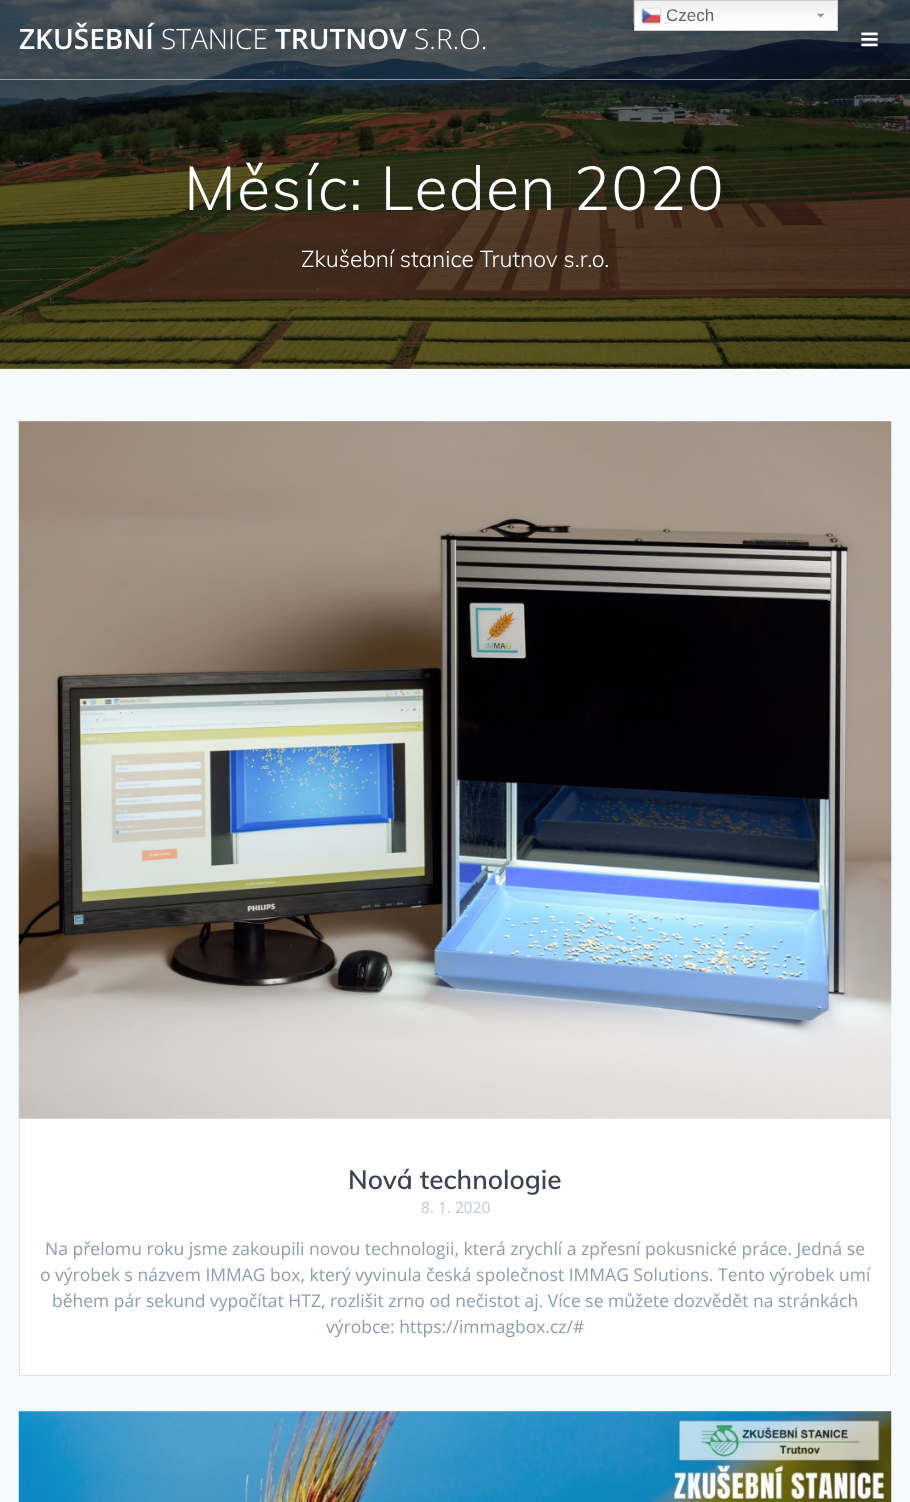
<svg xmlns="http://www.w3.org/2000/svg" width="910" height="1502">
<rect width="100%" height="100%" fill="#fff"/>
<image x="0" y="0" width="910" height="369" href="media/5.png"/>
<image x="500" y="2" width="329" height="214" href="media/6.png"/>
<rect x="635" y="1" width="202" height="29" fill="#fff"/>
<image x="633" y="0" width="204" height="24" href="media/1.png"/>
<image x="817" y="13" width="7" height="5" href="media/2.png"/>
<rect x="634.5" y="0.5" width="203" height="30" fill="none" stroke="#ccc"/>
<image x="641" y="7" width="21" height="18" href="media/3.png"/>
<text x="666" y="21" style="font-family:Liberation Sans;font-size:17px;fill:#666">Czech</text>
<rect y="79" width="910" height="1" fill="#ffffff80"/>
<text x="19" y="49" style="font-family:Open Sans;font-size:28px;font-weight:600;fill:#fff">ZKUŠEBNÍ</text>
<text x="161" y="49" style="font-family:Open Sans;font-size:28px;font-weight:300;fill:#fff">STANICE</text>
<text x="275" y="49" style="font-family:Open Sans;font-size:28px;font-weight:600;fill:#fff">TRUTNOV</text>
<text x="414" y="49" style="font-family:Open Sans;font-size:28px;font-weight:300;fill:#fff">S.R.O.</text>
<circle cx="869.5" cy="39.5" r="21.5" fill="#0000001a"/>
<image x="861" y="32" width="17" height="15" href="media/4.png"/>
<text x="184" y="210" style="font-family:Muli;font-size:61.25px;font-weight:300;letter-spacing:1.1px;fill:#fff">Měsíc: Leden 2020</text>
<text x="301" y="267" style="font-family:Muli;font-size:22.75px;font-weight:300;fill:#fff">Zkušební stanice Trutnov s.r.o.</text>
<rect y="369" width="910" height="1133" fill="#f5fafd"/>
<rect x="20" y="1118" width="870" height="257" fill="#fff"/>
<rect x="19.5" y="421.5" width="871" height="954" fill="none" stroke="#e0e1e1"/>
<image x="18" y="421" width="874" height="698" href="media/7.png"/>
<text x="348" y="1189" style="font-family:Muli;font-size:26.25px;font-weight:600;fill:#3c424f">Nová technologie</text>
<text x="421" y="1213" style="font-family:Open Sans;font-size:15.5px;fill:#c1c9d2">8. 1. 2020</text>
<text x="45" y="1255" style="font-family:Open Sans;font-size:17.5px;fill:#8e9dae">Na přelomu roku jsme zakoupili novou technologii, která zrychlí a zpřesní pokusnické práce. Jedná se</text>
<text x="40" y="1281" style="font-family:Open Sans;font-size:17.5px;fill:#8e9dae">o výrobek s názvem IMMAG box, který vyvinula česká společnost IMMAG Solutions. Tento výrobek umí</text>
<text x="52" y="1307" style="font-family:Open Sans;font-size:17.5px;fill:#8e9dae">během pár sekund vypočítat HTZ, rozlišit zrno od nečistot aj. Více se můžete dozvědět na stránkách</text>
<text x="326" y="1333" style="font-family:Open Sans;font-size:17.5px;fill:#8e9dae">výrobce: https://immagbox.cz/#</text>
<rect x="19.5" y="1411.5" width="871" height="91" fill="none" stroke="#e0e1e1"/>
<image x="18" y="1411" width="874" height="91" href="media/8.png"/>
</svg>
